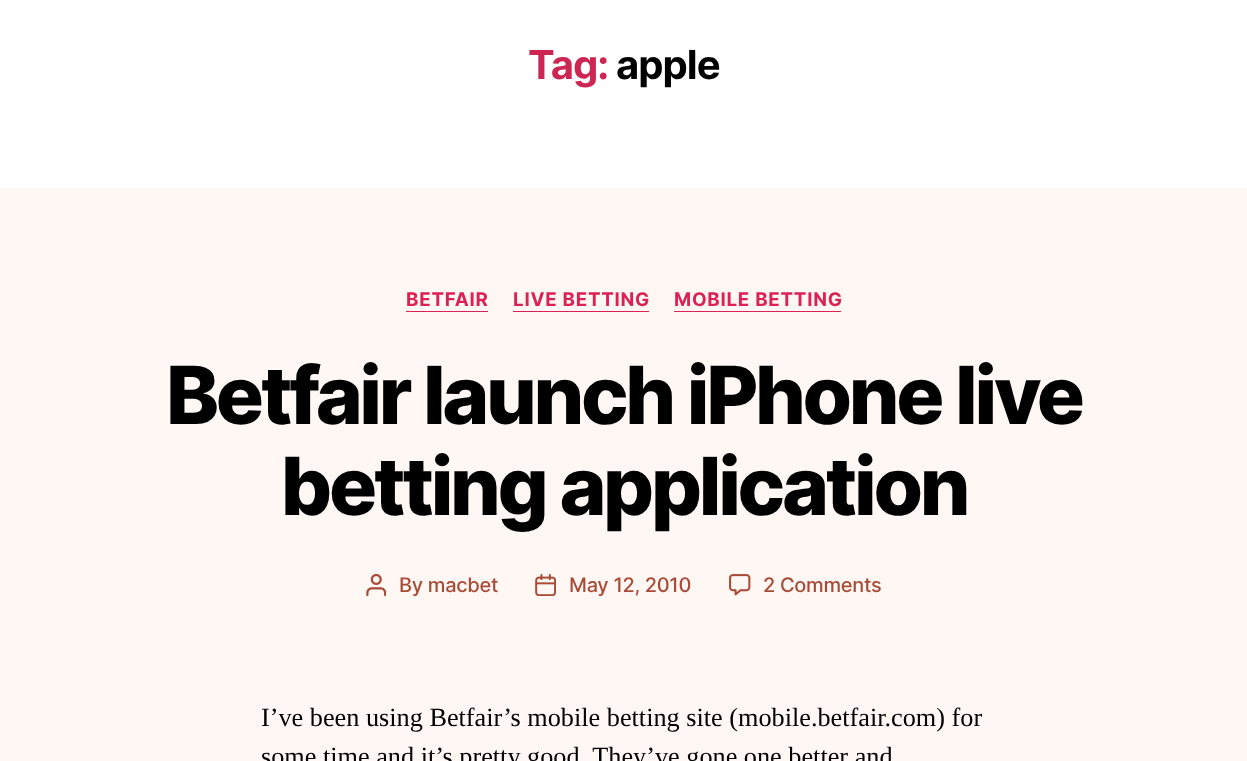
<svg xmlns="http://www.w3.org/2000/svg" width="1247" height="761">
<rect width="100%" height="100%" fill="#fff7f4"/>
<rect width="1247" height="188" fill="#fff"/>
<text x="528" y="79" style="font-family:Inter;font-size:40px;font-weight:bold;letter-spacing:-1px;fill:#cd2653">Tag:</text>
<text x="616" y="79" style="font-family:Inter;font-size:40px;font-weight:bold;letter-spacing:-1px;fill:#000">apple</text>
<rect x="406" y="311" width="82" height="1" fill="#dc2254"/>
<text x="406" y="306" style="font-family:Inter;font-size:18.75px;font-weight:bold;letter-spacing:0.75px;fill:#dc2254">BETFAIR</text>
<rect x="513" y="311" width="136" height="1" fill="#dc2254"/>
<text x="513" y="306" style="font-family:Inter;font-size:18.75px;font-weight:bold;letter-spacing:0.75px;fill:#dc2254">LIVE BETTING</text>
<rect x="674" y="311" width="167" height="1" fill="#dc2254"/>
<text x="674" y="306" style="font-family:Inter;font-size:18.75px;font-weight:bold;letter-spacing:0.75px;fill:#dc2254">MOBILE BETTING</text>
<text x="166" y="424" style="font-family:Inter;font-size:80px;font-weight:800;letter-spacing:-3.3px;fill:#000">Betfair launch iPhone live</text>
<text x="281" y="515" style="font-family:Inter;font-size:80px;font-weight:800;letter-spacing:-3.3px;fill:#000">betting application</text>
<image x="366" y="574" width="20" height="22" href="media/1.png"/>
<text x="399" y="592" style="font-family:Inter;font-size:20px;font-weight:500;letter-spacing:-0.3px;fill:#a84c38">By macbet</text>
<image x="535" y="574" width="21" height="22" href="media/2.png"/>
<text x="569" y="592" style="font-family:Inter;font-size:20px;font-weight:500;letter-spacing:-0.3px;fill:#a84c38">May 12, 2010</text>
<image x="729" y="574" width="22" height="22" href="media/3.png"/>
<text x="763" y="592" style="font-family:Inter;font-size:20px;font-weight:500;letter-spacing:-0.3px;fill:#a84c38">2 Comments</text>
<text x="261" y="726" style="font-family:Liberation Serif;font-size:26.25px;fill:#000">I’ve been using Betfair’s mobile betting site (mobile.betfair.com) for</text>
<text x="261" y="765" style="font-family:Liberation Serif;font-size:26.25px;fill:#000">some time and it’s pretty good. They’ve gone one better and</text>
</svg>
